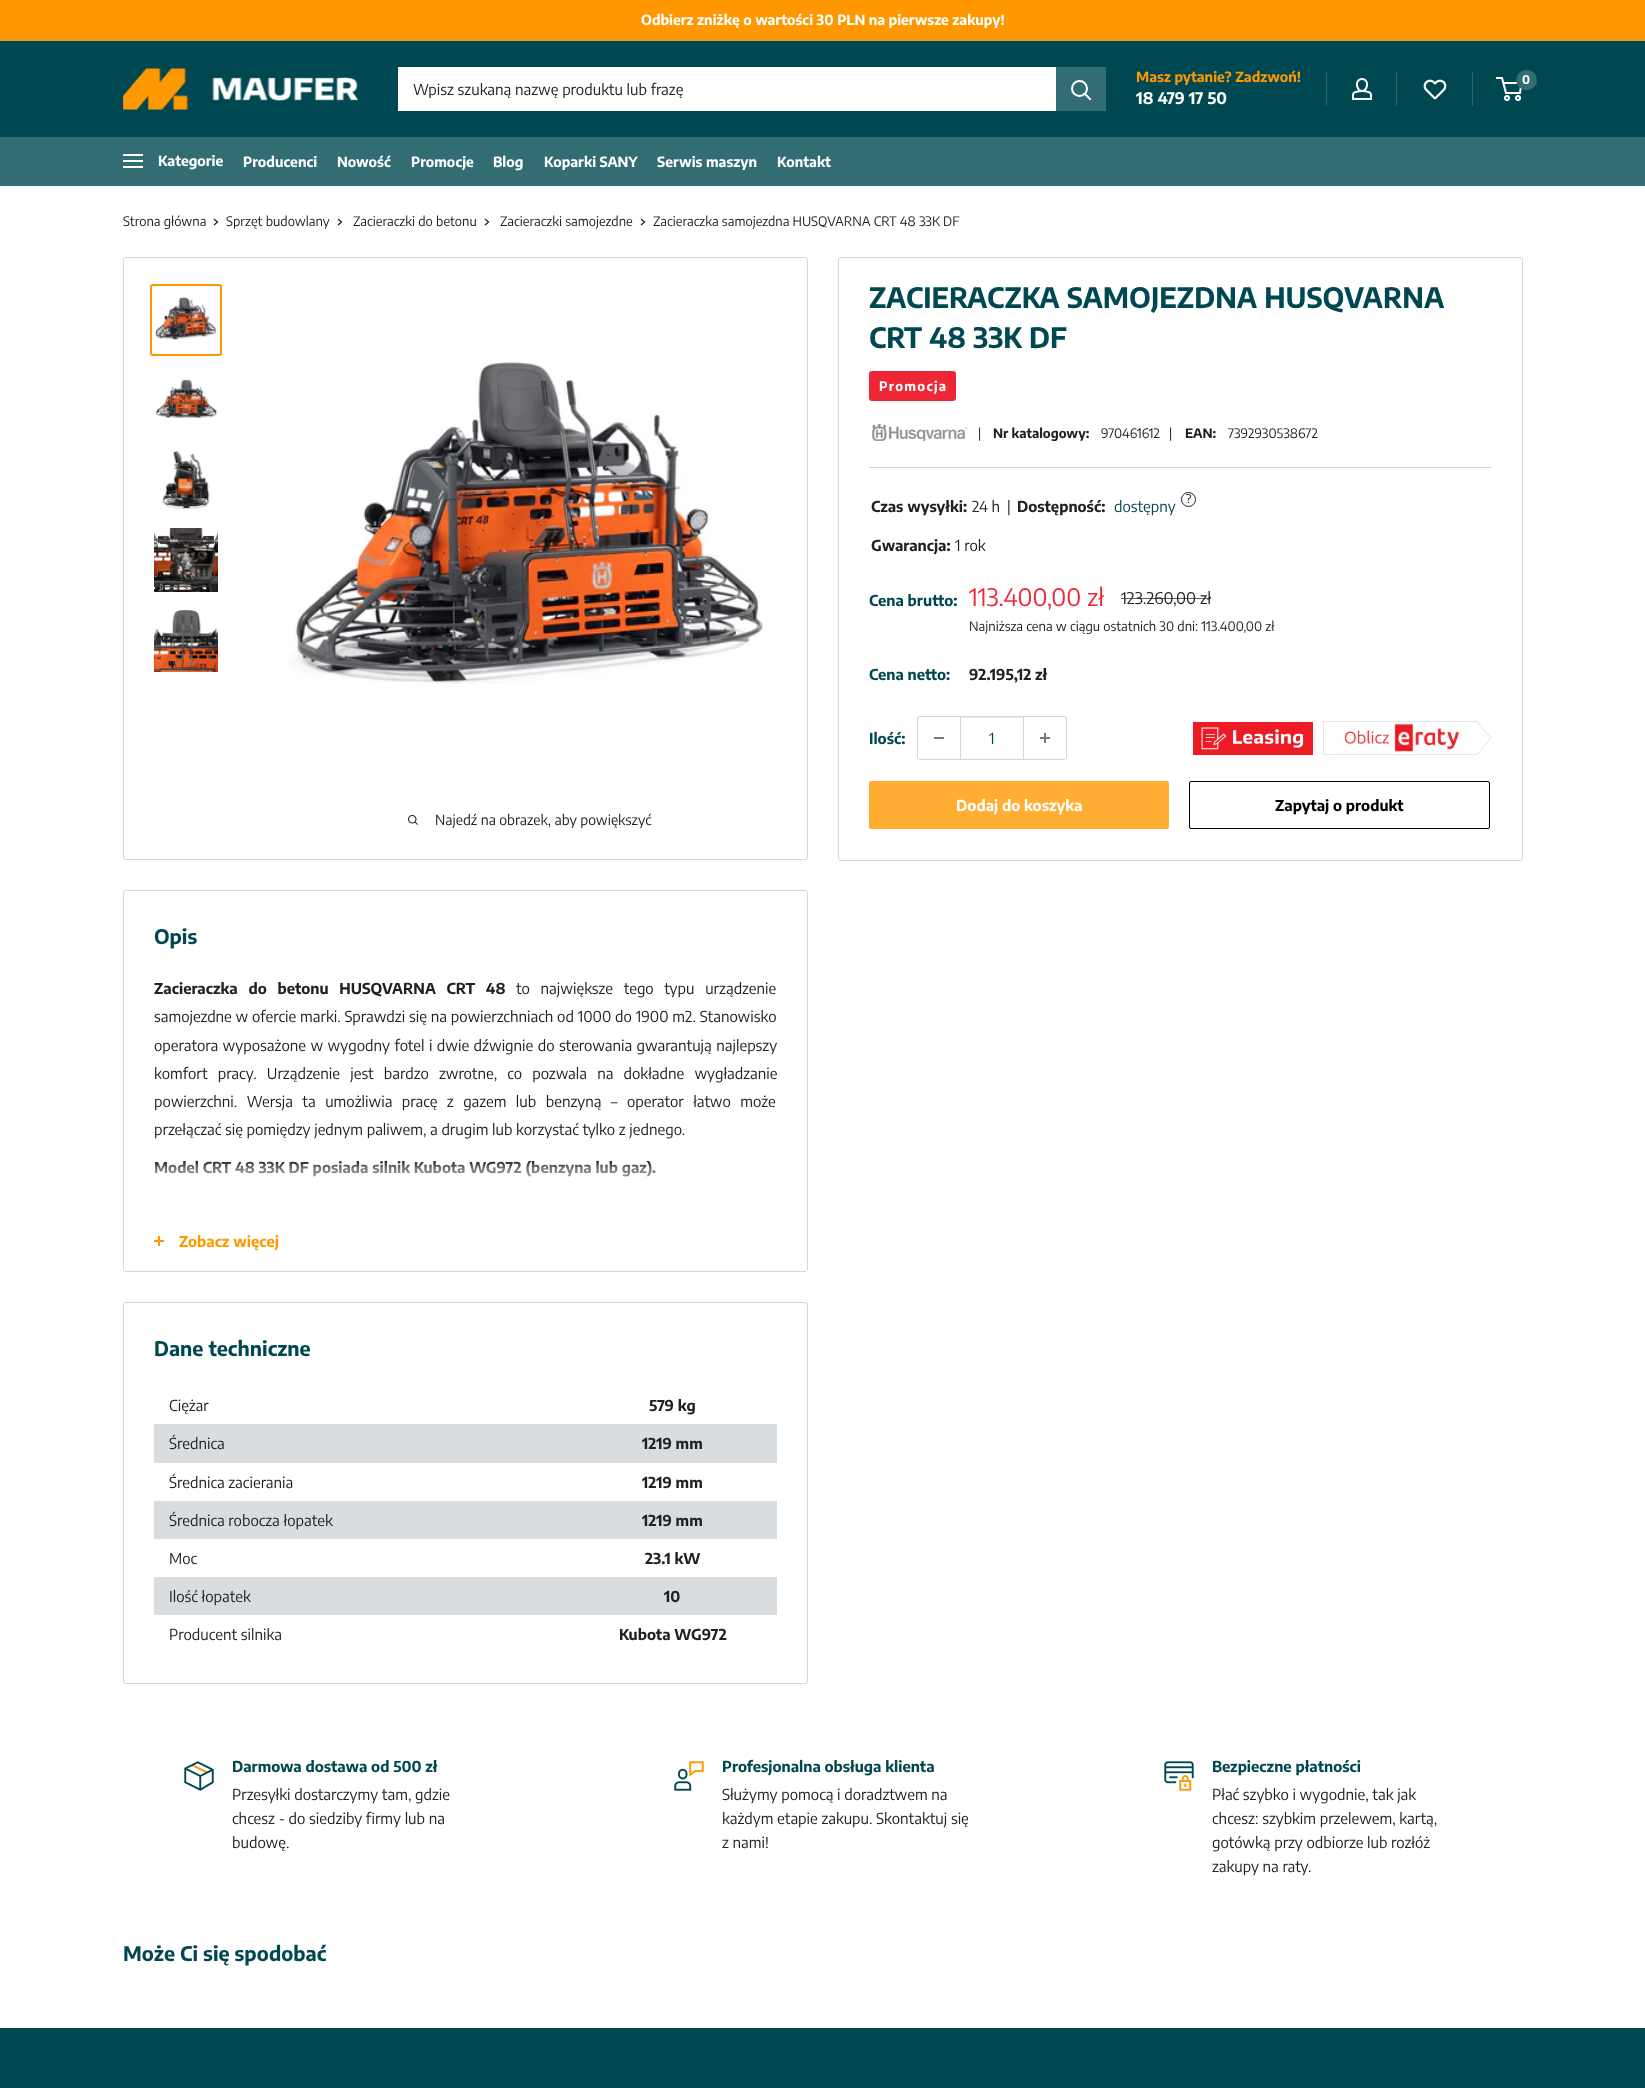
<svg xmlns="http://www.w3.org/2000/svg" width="1645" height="2088">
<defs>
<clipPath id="clip1"><rect x="413" y="80" width="628" height="18"/></clipPath>
<linearGradient id="g1" gradientUnits="userSpaceOnUse" x1="466" y1="1161" x2="466" y2="1211"><stop offset="0" stop-color="#fff" stop-opacity="0"/><stop offset="0.15" stop-color="#fff" stop-opacity="0.4"/><stop offset="1" stop-color="#fff"/></linearGradient>
</defs>
<rect width="100%" height="100%" fill="#fff"/>
<rect width="1645" height="40" fill="#ff9800"/>
<rect y="40" width="1645" height="1" fill="#e0a138"/>
<text x="641" y="25" style="font-family:Encode Sans Condensed;font-size:14px;font-weight:bold;fill:#fff">Odbierz zniżkę o wartości 30 PLN na pierwsze zakupy!</text>
<rect y="41" width="1645" height="96" fill="#004851"/>
<image x="123" y="68" width="235" height="42" href="media/1.png"/>
<rect x="398" y="67" width="658" height="44" fill="#fff"/>
<g clip-path="url(#clip1)">
<text x="413" y="95" style="font-family:Encode Sans Condensed;font-size:15px;fill:#202124">Wpisz szukaną nazwę produktu lub frazę</text>
</g>
<rect x="1056" y="67" width="50" height="44" fill="#336d74"/>
<path d="M1090 99l-5-5" fill="none" stroke="#fff" stroke-width="2" stroke-linecap="square"/>
<circle cx="1079.5" cy="88.5" r="7.5" fill="none" stroke="#fff" stroke-width="2"/>
<text x="1136" y="82" style="font-family:Encode Sans Condensed;font-size:14px;font-weight:bold;fill:#ff9800">Masz pytanie? Zadzwoń!</text>
<text x="1136" y="104" style="font-family:Encode Sans Condensed;font-size:16px;font-weight:bold;fill:#fff">18 479 17 50</text>
<rect x="1326" y="72" width="1" height="34" fill="#2e6970"/>
<image x="1352" y="78" width="20" height="22" href="media/2.png"/>
<rect x="1396" y="72" width="1" height="34" fill="#2e6970"/>
<image x="1423" y="79" width="24" height="21" href="media/3.png"/>
<rect x="1472" y="72" width="1" height="34" fill="#2e6970"/>
<circle cx="1507" cy="98" r="2" fill="none" stroke="#fff" stroke-width="2"/>
<circle cx="1518" cy="98" r="2" fill="none" stroke="#fff" stroke-width="2"/>
<path d="M1503.5 83h18l-1.5 10h-14l-4-15h-6" fill="none" stroke="#fff" stroke-width="2"/>
<rect x="1516" y="70" width="21" height="20" rx="10" fill="#336d74"/>
<text x="1522" y="84" style="font-family:Encode Sans Condensed;font-size:12px;font-weight:bold;fill:#fff">0</text>
<rect y="137" width="1645" height="49" fill="#336d74"/>
<image x="123" y="154" width="20" height="14" href="media/4.png"/>
<text x="158" y="166" style="font-family:Encode Sans Condensed;font-size:14px;font-weight:bold;fill:#fff">Kategorie</text>
<text x="243" y="167" style="font-family:Encode Sans Condensed;font-size:14px;font-weight:bold;fill:#fff">Producenci</text>
<text x="337" y="167" style="font-family:Encode Sans Condensed;font-size:14px;font-weight:bold;fill:#fff">Nowość</text>
<text x="411" y="167" style="font-family:Encode Sans Condensed;font-size:14px;font-weight:bold;fill:#fff">Promocje</text>
<text x="493" y="167" style="font-family:Encode Sans Condensed;font-size:14px;font-weight:bold;fill:#fff">Blog</text>
<text x="544" y="167" style="font-family:Encode Sans Condensed;font-size:14px;font-weight:bold;fill:#fff">Koparki SANY</text>
<text x="657" y="167" style="font-family:Encode Sans Condensed;font-size:14px;font-weight:bold;fill:#fff">Serwis maszyn</text>
<text x="777" y="167" style="font-family:Encode Sans Condensed;font-size:14px;font-weight:bold;fill:#fff">Kontakt</text>
<text x="123" y="226" style="font-family:Encode Sans Condensed;font-size:13px;fill:#202124">Strona główna</text>
<path d="M214.5 219.5l3 2.5l-3 2.5" fill="none" stroke="#202124" stroke-width="1.3" stroke-linecap="square"/>
<text x="226" y="226" style="font-family:Encode Sans Condensed;font-size:13px;fill:#202124">Sprzęt budowlany</text>
<path d="M338.5 219.5l3 2.5l-3 2.5" fill="none" stroke="#202124" stroke-width="1.3" stroke-linecap="square"/>
<text x="353" y="226" style="font-family:Encode Sans Condensed;font-size:13px;fill:#202124">Zacieraczki do betonu</text>
<path d="M485.5 219.5l3 2.5l-3 2.5" fill="none" stroke="#202124" stroke-width="1.3" stroke-linecap="square"/>
<text x="500" y="226" style="font-family:Encode Sans Condensed;font-size:13px;fill:#202124">Zacieraczki samojezdne</text>
<path d="M641.5 219.5l3 2.5l-3 2.5" fill="none" stroke="#202124" stroke-width="1.3" stroke-linecap="square"/>
<text x="653" y="226" style="font-family:Encode Sans Condensed;font-size:13px;fill:#202124">Zacieraczka samojezdna HUSQVARNA CRT 48 33K DF</text>
<rect x="838.5" y="257.5" width="684" height="603" rx="2.5" fill="none" stroke="#ccdadc"/>
<text x="869" y="308" style="font-family:Encode Sans Condensed;font-size:28px;font-weight:bold;fill:#004851">ZACIERACZKA SAMOJEZDNA HUSQVARNA</text>
<text x="869" y="348" style="font-family:Encode Sans Condensed;font-size:28px;font-weight:bold;fill:#004851">CRT 48 33K DF</text>
<rect x="869" y="371" width="87" height="30" rx="3" fill="#ee2737"/>
<text x="879" y="391" style="font-family:Encode Sans Condensed;font-size:13px;font-weight:bold;letter-spacing:1.25px;fill:#fff">Promocja</text>
<image x="870" y="421" width="98" height="20" href="media/5.png"/>
<text x="978" y="438" style="font-family:Encode Sans Condensed;font-size:13px;fill:#202124">|</text>
<text x="993" y="438" style="font-family:Encode Sans Condensed;font-size:13px;font-weight:bold;fill:#202124">Nr katalogowy:</text>
<text x="1101" y="438" style="font-family:Encode Sans Condensed;font-size:13px;fill:#202124">970461612</text>
<text x="1169" y="438" style="font-family:Encode Sans Condensed;font-size:13px;fill:#202124">|</text>
<text x="1185" y="438" style="font-family:Encode Sans Condensed;font-size:13px;font-weight:bold;fill:#202124">EAN:</text>
<text x="1228" y="438" style="font-family:Encode Sans Condensed;font-size:13px;fill:#202124">7392930538672</text>
<rect x="869" y="467" width="623" height="1" fill="#ccdadc"/>
<text x="871" y="512" style="font-family:Encode Sans Condensed;font-size:15px;font-weight:bold;fill:#202124">Czas wysyłki:</text>
<text x="972" y="512" style="font-family:Encode Sans Condensed;font-size:15px;fill:#202124">24 h</text>
<text x="1007" y="512" style="font-family:Encode Sans Condensed;font-size:15px;fill:#202124">|</text>
<text x="1017" y="512" style="font-family:Encode Sans Condensed;font-size:15px;font-weight:bold;fill:#202124">Dostępność:</text>
<text x="1114" y="512" style="font-family:Encode Sans Condensed;font-size:15px;fill:#004851">dostępny</text>
<circle cx="1188.5" cy="499.5" r="7" fill="none" stroke="#202124"/>
<text x="1186" y="503" style="font-family:Encode Sans Condensed;font-size:12px;fill:#202124">?</text>
<text x="871" y="551" style="font-family:Encode Sans Condensed;font-size:15px;font-weight:bold;fill:#202124">Gwarancja:</text>
<text x="955" y="551" style="font-family:Encode Sans Condensed;font-size:15px;fill:#202124">1 rok</text>
<text x="869" y="606" style="font-family:Encode Sans Condensed;font-size:15px;font-weight:bold;fill:#004851">Cena brutto:</text>
<text x="969" y="606" style="font-family:Encode Sans Condensed;font-size:24px;fill:#ee2737">113.400,00 zł</text>
<text x="1121" y="604" style="font-family:Encode Sans Condensed;font-size:16px;fill:#202124">123.260,00 zł</text>
<rect x="1121" y="598" width="90" height="1" fill="#202124b3"/>
<text x="969" y="631" style="font-family:Encode Sans Condensed;font-size:13px;fill:#202124">Najniższa cena w ciągu ostatnich 30 dni: 113.400,00 zł</text>
<text x="869" y="680" style="font-family:Encode Sans Condensed;font-size:15px;font-weight:bold;fill:#004851">Cena netto:</text>
<text x="969" y="680" style="font-family:Encode Sans Condensed;font-size:15px;font-weight:bold;fill:#202124">92.195,12 zł</text>
<text x="869" y="744" style="font-family:Encode Sans Condensed;font-size:15px;font-weight:bold;fill:#004851">Ilość:</text>
<rect x="917.5" y="716.5" width="149" height="43" rx="2.5" fill="none" stroke="#ccdadc"/>
<rect x="934" y="737" width="10" height="2" fill="#797a7c"/>
<rect x="961" y="717" width="62" height="1" fill="#ebf0f1"/>
<rect x="1023" y="717" width="1" height="42" fill="#ccdadc"/>
<rect x="960" y="717" width="1" height="42" fill="#ccdadc"/>
<text x="989" y="744" style="font-family:Encode Sans Condensed;font-size:15px;fill:#004851">1</text>
<image x="1040" y="733" width="10" height="10" href="media/6.png"/>
<image x="1193" y="722" width="120" height="33" href="media/7.png"/>
<image x="1323" y="721" width="169" height="34" href="media/8.png"/>
<rect x="869" y="781" width="300" height="48" rx="2" fill="#ffad33"/>
<text x="956" y="811" style="font-family:Encode Sans Condensed;font-size:15px;font-weight:bold;fill:#fff">Dodaj do koszyka</text>
<rect x="1189.5" y="781.5" width="300" height="47" rx="1.5" fill="none" stroke="#000"/>
<text x="1275" y="811" style="font-family:Encode Sans Condensed;font-size:15px;font-weight:bold;fill:#000">Zapytaj o produkt</text>
<rect x="123.5" y="257.5" width="684" height="602" rx="2.5" fill="none" stroke="#ccdadc"/>
<rect x="151" y="285" width="70" height="70" rx="2" fill="none" stroke="#ff9800" stroke-width="2"/>
<image x="155" y="296" width="62" height="44" href="media/9.png"/>
<image x="156" y="379" width="61" height="40" href="media/10.png"/>
<image x="162" y="451" width="48" height="59" href="media/11.png"/>
<image x="154" y="528" width="64" height="64" href="media/12.png"/>
<image x="154" y="610" width="64" height="62" href="media/13.png"/>
<image x="288" y="361" width="475" height="323" href="media/14.png"/>
<image x="408" y="815" width="10" height="10" href="media/15.png"/>
<text x="435" y="825" style="font-family:Encode Sans Condensed;font-size:14px;fill:#202124">Najedź na obrazek, aby powiększyć</text>
<rect x="123.5" y="890.5" width="684" height="381" rx="2.5" fill="none" stroke="#ccdadc"/>
<text x="154" y="944" style="font-family:Encode Sans Condensed;font-size:20px;font-weight:bold;fill:#004851">Opis</text>
<text x="154" y="994" word-spacing="7" style="font-family:Encode Sans Condensed;font-size:15px;font-weight:bold;fill:#202124">Zacieraczka do betonu HUSQVARNA CRT 48</text>
<text x="516" y="994" word-spacing="7" style="font-family:Encode Sans Condensed;font-size:15px;fill:#202124">to największe tego typu urządzenie</text>
<text x="154" y="1022" word-spacing="0.1" style="font-family:Encode Sans Condensed;font-size:15px;fill:#202124">samojezdne w ofercie marki. Sprawdzi się na powierzchniach od 1000 do 1900 m2. Stanowisko</text>
<text x="154" y="1051" word-spacing="0.75" style="font-family:Encode Sans Condensed;font-size:15px;fill:#202124">operatora wyposażone w wygodny fotel i dwie dźwignie do sterowania gwarantują najlepszy</text>
<text x="154" y="1079" word-spacing="6.5" style="font-family:Encode Sans Condensed;font-size:15px;fill:#202124">komfort pracy. Urządzenie jest bardzo zwrotne, co pozwala na dokładne wygładzanie</text>
<text x="154" y="1107" word-spacing="5.75" style="font-family:Encode Sans Condensed;font-size:15px;fill:#202124">powierzchni. Wersja ta umożliwia pracę z gazem lub benzyną – operator łatwo może</text>
<text x="154" y="1135" style="font-family:Encode Sans Condensed;font-size:15px;fill:#202124">przełączać się pomiędzy jednym paliwem, a drugim lub korzystać tylko z jednego.</text>
<text x="154" y="1173" style="font-family:Encode Sans Condensed;font-size:15px;font-weight:bold;fill:#202124">Model CRT 48 33K DF posiada silnik Kubota WG972 (benzyna lub gaz).</text>
<rect x="124" y="1269" width="683" height="2" fill="#fff"/>
<rect x="154" y="1161" width="501" height="16" fill="url(#g1)"/>
<rect x="158" y="1236" width="2" height="10" fill="#ff9800"/>
<rect x="154" y="1240" width="10" height="2" fill="#ff9800"/>
<text x="179" y="1247" style="font-family:Encode Sans Condensed;font-size:15px;font-weight:bold;fill:#ff9800">Zobacz więcej</text>
<rect x="123.5" y="1302.5" width="684" height="381" rx="2.5" fill="none" stroke="#ccdadc"/>
<text x="154" y="1356" style="font-family:Encode Sans Condensed;font-size:20px;font-weight:bold;fill:#004851">Dane techniczne</text>
<text x="169" y="1411" style="font-family:Encode Sans Condensed;font-size:15px;fill:#202124">Ciężar</text>
<text x="649" y="1411" style="font-family:Encode Sans Condensed;font-size:15px;font-weight:bold;fill:#202124">579 kg</text>
<rect x="154" y="1424" width="623" height="39" fill="#d9dde0"/>
<text x="169" y="1449" style="font-family:Encode Sans Condensed;font-size:15px;fill:#202124">Średnica</text>
<text x="642" y="1449" style="font-family:Encode Sans Condensed;font-size:15px;font-weight:bold;fill:#202124">1219 mm</text>
<text x="169" y="1488" style="font-family:Encode Sans Condensed;font-size:15px;fill:#202124">Średnica zacierania</text>
<text x="642" y="1488" style="font-family:Encode Sans Condensed;font-size:15px;font-weight:bold;fill:#202124">1219 mm</text>
<rect x="154" y="1501" width="623" height="38" fill="#d9dde0"/>
<text x="169" y="1526" style="font-family:Encode Sans Condensed;font-size:15px;fill:#202124">Średnica robocza łopatek</text>
<text x="642" y="1526" style="font-family:Encode Sans Condensed;font-size:15px;font-weight:bold;fill:#202124">1219 mm</text>
<text x="169" y="1564" style="font-family:Encode Sans Condensed;font-size:15px;fill:#202124">Moc</text>
<text x="645" y="1564" style="font-family:Encode Sans Condensed;font-size:15px;font-weight:bold;fill:#202124">23.1 kW</text>
<rect x="154" y="1577" width="623" height="38" fill="#d9dde0"/>
<text x="169" y="1602" style="font-family:Encode Sans Condensed;font-size:15px;fill:#202124">Ilość łopatek</text>
<text x="664" y="1602" style="font-family:Encode Sans Condensed;font-size:15px;font-weight:bold;fill:#202124">10</text>
<text x="169" y="1640" style="font-family:Encode Sans Condensed;font-size:15px;fill:#202124">Producent silnika</text>
<text x="619" y="1640" style="font-family:Encode Sans Condensed;font-size:15px;font-weight:bold;fill:#202124">Kubota WG972</text>
<image x="184" y="1761" width="30" height="30" href="media/16.png"/>
<text x="232" y="1772" style="font-family:Encode Sans Condensed;font-size:15px;font-weight:bold;fill:#004851">Darmowa dostawa od 500 zł</text>
<text x="232" y="1800" style="font-family:Encode Sans Condensed;font-size:15px;fill:#202124">Przesyłki dostarczymy tam, gdzie</text>
<text x="232" y="1824" style="font-family:Encode Sans Condensed;font-size:15px;fill:#202124">chcesz - do siedziby firmy lub na</text>
<text x="232" y="1848" style="font-family:Encode Sans Condensed;font-size:15px;fill:#202124">budowę.</text>
<image x="674" y="1761" width="30" height="30" href="media/17.png"/>
<text x="722" y="1772" style="font-family:Encode Sans Condensed;font-size:15px;font-weight:bold;fill:#004851">Profesjonalna obsługa klienta</text>
<text x="722" y="1800" style="font-family:Encode Sans Condensed;font-size:15px;fill:#202124">Służymy pomocą i doradztwem na</text>
<text x="722" y="1824" style="font-family:Encode Sans Condensed;font-size:15px;fill:#202124">każdym etapie zakupu. Skontaktuj się</text>
<text x="722" y="1848" style="font-family:Encode Sans Condensed;font-size:15px;fill:#202124">z nami!</text>
<image x="1164" y="1761" width="30" height="30" href="media/18.png"/>
<text x="1212" y="1772" style="font-family:Encode Sans Condensed;font-size:15px;font-weight:bold;fill:#004851">Bezpieczne płatności</text>
<text x="1212" y="1800" style="font-family:Encode Sans Condensed;font-size:15px;fill:#202124">Płać szybko i wygodnie, tak jak</text>
<text x="1212" y="1824" style="font-family:Encode Sans Condensed;font-size:15px;fill:#202124">chcesz: szybkim przelewem, kartą,</text>
<text x="1212" y="1848" style="font-family:Encode Sans Condensed;font-size:15px;fill:#202124">gotówką przy odbiorze lub rozłóż</text>
<text x="1212" y="1872" style="font-family:Encode Sans Condensed;font-size:15px;fill:#202124">zakupy na raty.</text>
<text x="123" y="1961" style="font-family:Encode Sans Condensed;font-size:20px;font-weight:bold;fill:#004851">Może Ci się spodobać</text>
<rect y="2028" width="1645" height="60" fill="#004851"/>
</svg>
